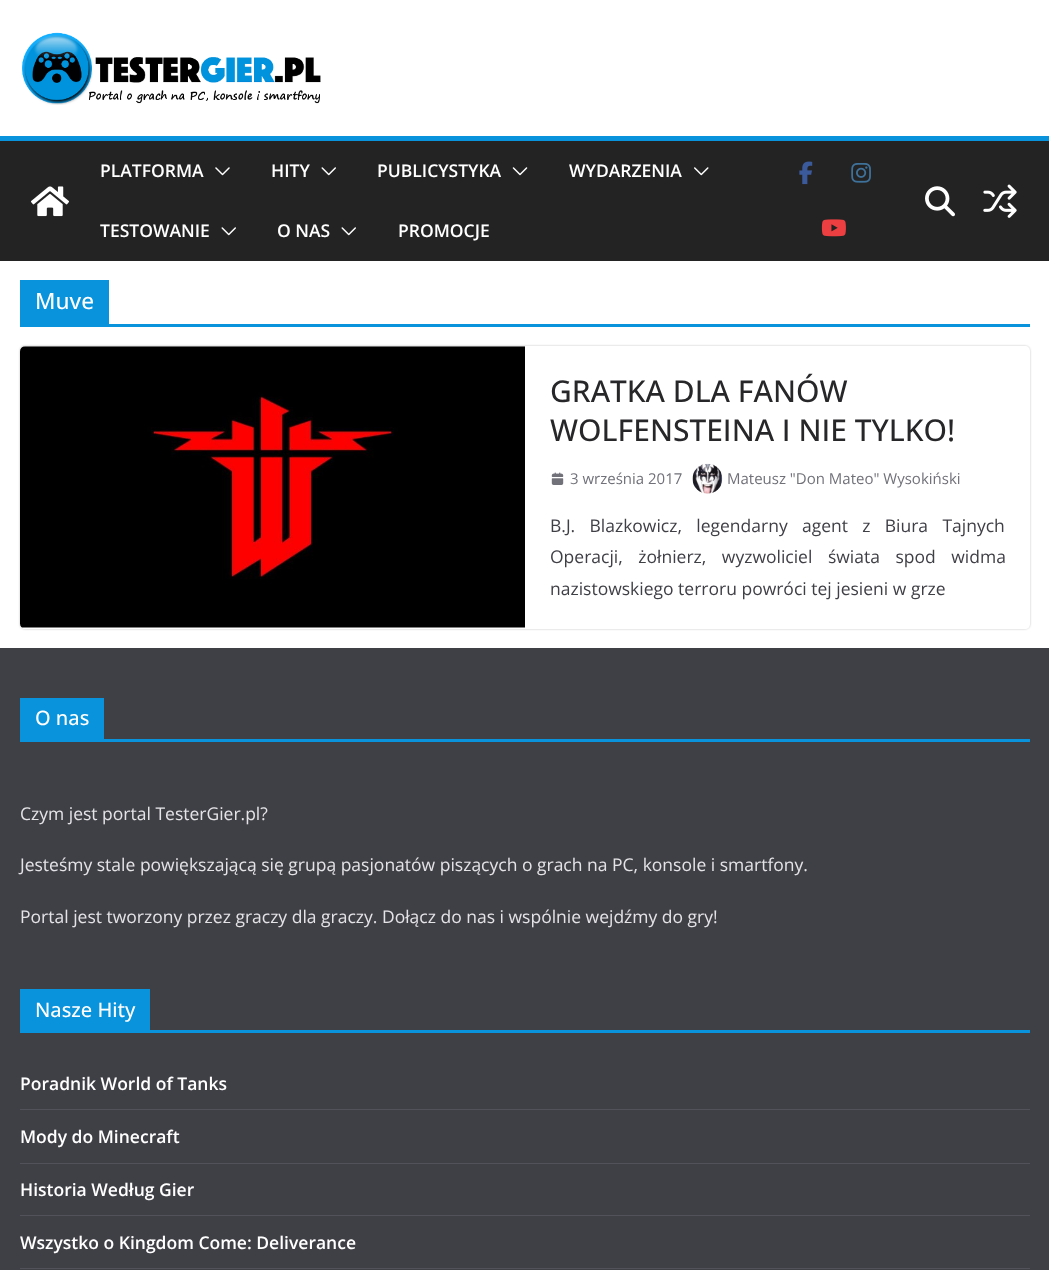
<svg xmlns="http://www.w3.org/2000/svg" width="1049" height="1270">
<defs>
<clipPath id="clip1"><path d="M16 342h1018v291h-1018zm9 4h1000c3 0 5 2 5 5v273c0 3-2 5-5 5h-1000c-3 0-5-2-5-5v-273c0-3 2-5 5-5z" clip-rule="evenodd"/></clipPath>
</defs>
<rect width="100%" height="100%" fill="#fff"/>
<image x="22" y="32" width="299" height="73" href="media/1.png"/>
<rect y="141" width="1049" height="120" fill="#232323"/>
<rect y="136" width="1049" height="5" fill="#0993dd"/>
<image x="31" y="186" width="38" height="31" href="media/2.png"/>
<text x="100" y="177" style="font-family:Open Sans;font-size:17.5px;font-weight:600;fill:#fff">PLATFORMA</text>
<image x="215" y="167" width="15" height="9" href="media/3.png"/>
<text x="271" y="177" style="font-family:Open Sans;font-size:17.5px;font-weight:600;fill:#fff">HITY</text>
<image x="321" y="167" width="15" height="9" href="media/4.png"/>
<text x="377" y="177" style="font-family:Open Sans;font-size:17.5px;font-weight:600;fill:#fff">PUBLICYSTYKA</text>
<image x="512" y="167" width="16" height="9" href="media/5.png"/>
<text x="569" y="177" style="font-family:Open Sans;font-size:17.5px;font-weight:600;fill:#fff">WYDARZENIA</text>
<image x="694" y="167" width="15" height="9" href="media/6.png"/>
<text x="100" y="237" style="font-family:Open Sans;font-size:17.5px;font-weight:600;fill:#fff">TESTOWANIE</text>
<image x="221" y="227" width="15" height="9" href="media/4.png"/>
<text x="277" y="237" style="font-family:Open Sans;font-size:17.5px;font-weight:600;fill:#fff">O NAS</text>
<image x="341" y="227" width="15" height="9" href="media/4.png"/>
<text x="398" y="237" style="font-family:Open Sans;font-size:17.5px;font-weight:600;fill:#fff">PROMOCJE</text>
<image x="799" y="161" width="14" height="24" href="media/7.png"/>
<image x="851" y="163" width="20" height="20" href="media/8.png"/>
<image x="821" y="219" width="25" height="18" href="media/9.png"/>
<image x="925" y="186" width="30" height="31" href="media/10.png"/>
<image x="983" y="184" width="34" height="34" href="media/11.png"/>
<rect x="20" y="324" width="1010" height="3" fill="#0993dd"/>
<rect x="20" y="280" width="89" height="44" fill="#0993dd"/>
<text x="35" y="309" style="font-family:Open Sans;font-size:22.5px;font-weight:500;fill:#fff">Muve</text>
<g clip-path="url(#clip1)">
<rect x="20" y="346" width="1010" height="283" rx="5" fill="#0000003d" filter="blur(1px)"/>
</g>
<image x="20" y="346" width="505" height="282" href="media/12.png"/>
<text x="550" y="402" style="font-family:Open Sans;font-size:30px;font-weight:500;fill:#27272a">GRATKA DLA FANÓW</text>
<text x="550" y="441" style="font-family:Open Sans;font-size:30px;font-weight:500;fill:#27272a">WOLFENSTEINA I NIE TYLKO!</text>
<image x="551" y="472" width="13" height="13" href="media/13.png"/>
<text x="570" y="484" style="font-family:Open Sans;font-size:15px;fill:#71717a">3 września 2017</text>
<image x="692" y="463" width="31" height="31" href="media/14.png"/>
<text x="727" y="484" style="font-family:Open Sans;font-size:15px;fill:#71717a">Mateusz "Don Mateo" Wysokiński</text>
<text x="550" y="532" word-spacing="9.75" style="font-family:Open Sans;font-size:17.5px;fill:#3f3f46">B.J. Blazkowicz, legendarny agent z Biura Tajnych</text>
<text x="550" y="563" word-spacing="11" style="font-family:Open Sans;font-size:17.5px;fill:#3f3f46">Operacji, żołnierz, wyzwoliciel świata spod widma</text>
<text x="550" y="595" style="font-family:Open Sans;font-size:17.5px;fill:#3f3f46">nazistowskiego terroru powróci tej jesieni w grze</text>
<rect y="648" width="1049" height="622" fill="#3f3f46"/>
<rect x="20" y="739" width="1010" height="3" fill="#0993dd"/>
<rect x="20" y="698" width="84" height="41" fill="#0993dd"/>
<text x="35" y="725" style="font-family:Open Sans;font-size:20px;font-weight:500;fill:#fff">O nas</text>
<text x="20" y="820" style="font-family:Open Sans;font-size:17.5px;fill:#e4e4e7">Czym jest portal TesterGier.pl?</text>
<text x="20" y="871" style="font-family:Open Sans;font-size:17.5px;fill:#e4e4e7">Jesteśmy stale powiększającą się grupą pasjonatów piszących o grach na PC, konsole i smartfony.</text>
<text x="20" y="923" style="font-family:Open Sans;font-size:17.5px;fill:#e4e4e7">Portal jest tworzony przez graczy dla graczy. Dołącz do nas i wspólnie wejdźmy do gry!</text>
<rect x="20" y="1030" width="1010" height="3" fill="#0993dd"/>
<rect x="20" y="989" width="130" height="41" fill="#0993dd"/>
<text x="35" y="1017" style="font-family:Open Sans;font-size:20px;font-weight:500;fill:#fff">Nasze Hity</text>
<rect x="20" y="1109" width="1010" height="1" fill="#52525b"/>
<text x="20" y="1090" style="font-family:Open Sans;font-size:17.5px;font-weight:600;fill:#fff">Poradnik World of Tanks</text>
<rect x="20" y="1163" width="1010" height="1" fill="#52525b"/>
<text x="20" y="1143" style="font-family:Open Sans;font-size:17.5px;font-weight:600;fill:#fff">Mody do Minecraft</text>
<rect x="20" y="1215" width="1010" height="1" fill="#52525b"/>
<text x="20" y="1196" style="font-family:Open Sans;font-size:17.5px;font-weight:600;fill:#fff">Historia Według Gier</text>
<rect x="20" y="1268" width="1010" height="1" fill="#52525b"/>
<text x="20" y="1249" style="font-family:Open Sans;font-size:17.5px;font-weight:600;fill:#fff">Wszystko o Kingdom Come: Deliverance</text>
</svg>
